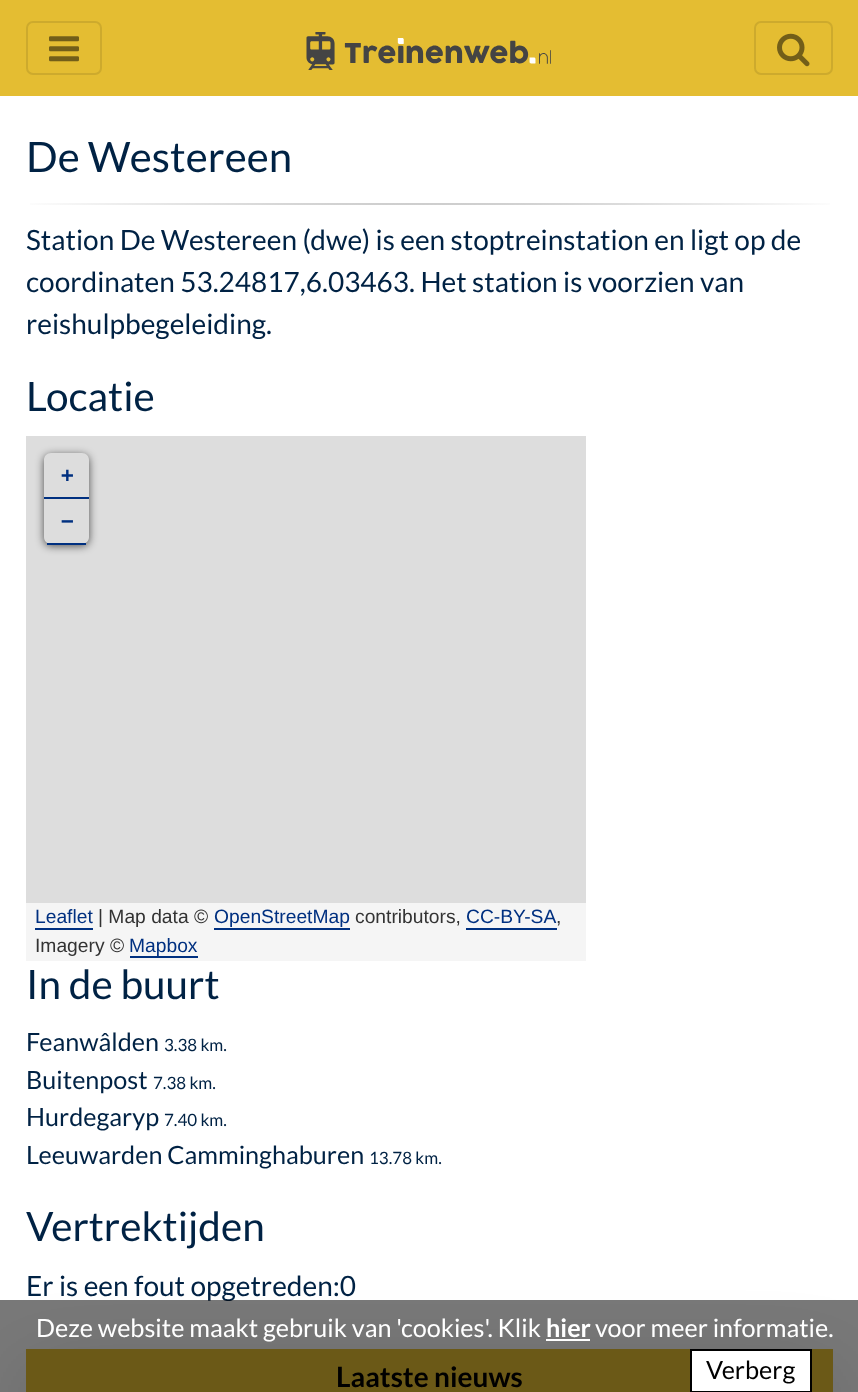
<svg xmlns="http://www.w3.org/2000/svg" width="858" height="1392">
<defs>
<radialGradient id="g1" gradientUnits="userSpaceOnUse" cx="0" cy="0" r="1" gradientTransform="matrix(608 0 0 1.2 430 204)"><stop offset="0" stop-color="#999"/><stop offset="0.8" stop-color="#fff"/></radialGradient>
<clipPath id="clip1"><path d="M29 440h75v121h-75zm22 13h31c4 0 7 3 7 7v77c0 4-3 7-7 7h-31c-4 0-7-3-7-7v-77c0-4 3-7 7-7z" clip-rule="evenodd"/></clipPath>
</defs>
<rect width="100%" height="100%" fill="#fff"/>
<rect width="858" height="96" fill="#e4bd32"/>
<rect x="27" y="22" width="74" height="52" rx="6" fill="none" stroke="#cdaa2d" stroke-width="2"/>
<image x="49" y="36" width="30" height="26" href="media/1.png"/>
<image x="306" y="32" width="245" height="38" href="media/2.png"/>
<rect x="755" y="22" width="77" height="52" rx="6" fill="none" stroke="#cdaa2d" stroke-width="2"/>
<image x="777" y="33" width="33" height="34" href="media/3.png"/>
<text x="26" y="172" style="font-family:Lato;font-size:42px;fill:#024">De Westereen</text>
<rect x="30" y="203" width="800" height="2" fill="url(#g1)"/>
<text x="26" y="250" style="font-family:Lato;font-size:28px;fill:#024">Station De Westereen (dwe) is een stoptreinstation en ligt op de</text>
<text x="26" y="292" style="font-family:Lato;font-size:28px;fill:#024">coordinaten 53.24817,6.03463. Het station is voorzien van</text>
<text x="26" y="334" style="font-family:Lato;font-size:28px;fill:#024">reishulpbegeleiding.</text>
<text x="26" y="411" style="font-family:Lato;font-size:40.5px;fill:#024">Locatie</text>
<rect x="26" y="436" width="560" height="467" fill="#ddd"/>
<g clip-path="url(#clip1)">
<rect x="44" y="455" width="45" height="91" rx="7" fill="#000000a6" filter="blur(4.5px)"/>
</g>
<rect x="44" y="497" width="45" height="2" fill="#003080"/>
<text x="61" y="482" style="font-family:DejaVu Sans Mono;font-size:21px;font-weight:bold;fill:#003080">+</text>
<rect x="47" y="543" width="39" height="2" fill="#003080"/>
<text x="61" y="528" style="font-family:DejaVu Sans Mono;font-size:21px;font-weight:bold;fill:#003080">−</text>
<rect x="26" y="903" width="560" height="58" fill="#f5f5f5"/>
<text x="35" y="923" style="font-family:Liberation Sans;font-size:19.25px;fill:#003080">Leaflet</text>
<rect x="35" y="928" width="58" height="2" fill="#003080"/>
<text x="98" y="923" style="font-family:Liberation Sans;font-size:19.25px;fill:#333">| Map data ©</text>
<text x="214" y="923" style="font-family:Liberation Sans;font-size:19.25px;fill:#003080">OpenStreetMap</text>
<rect x="214" y="928" width="136" height="2" fill="#003080"/>
<text x="355" y="923" style="font-family:Liberation Sans;font-size:19.25px;fill:#333">contributors,</text>
<text x="466" y="923" style="font-family:Liberation Sans;font-size:19.25px;fill:#003080">CC-BY-SA</text>
<rect x="466" y="928" width="91" height="2" fill="#003080"/>
<text x="556" y="923" style="font-family:Liberation Sans;font-size:19.25px;fill:#333">,</text>
<text x="35" y="952" style="font-family:Liberation Sans;font-size:19.25px;fill:#333">Imagery ©</text>
<text x="129" y="952" style="font-family:Liberation Sans;font-size:19.25px;fill:#003080">Mapbox</text>
<rect x="130" y="956" width="68" height="2" fill="#003080"/>
<text x="26" y="999" style="font-family:Lato;font-size:40.5px;fill:#024">In de buurt</text>
<text x="26" y="1051" style="font-family:Lato;font-size:25.2px;fill:#024">Feanwâlden</text>
<text x="164" y="1051" style="font-family:Lato;font-size:17px;fill:#024">3.38 km.</text>
<text x="26" y="1089" style="font-family:Lato;font-size:25.2px;fill:#024">Buitenpost</text>
<text x="153" y="1089" style="font-family:Lato;font-size:17px;fill:#024">7.38 km.</text>
<text x="26" y="1126" style="font-family:Lato;font-size:25.2px;fill:#024">Hurdegaryp</text>
<text x="164" y="1126" style="font-family:Lato;font-size:17px;fill:#024">7.40 km.</text>
<text x="26" y="1164" style="font-family:Lato;font-size:25.2px;fill:#024">Leeuwarden Camminghaburen</text>
<text x="369" y="1164" style="font-family:Lato;font-size:17px;fill:#024">13.78 km.</text>
<text x="26" y="1241" style="font-family:Lato;font-size:40.5px;fill:#024">Vertrektijden</text>
<text x="26" y="1296" style="font-family:Lato;font-size:28px;fill:#024">Er is een fout opgetreden:0</text>
<rect x="26" y="1377" width="807" height="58" fill="#0000002e" filter="blur(42px)"/>
<rect x="26" y="1349" width="807" height="43" fill="#e4bd32"/>
<text x="336" y="1387" style="font-family:Lato;font-size:28px;font-weight:bold;fill:#000">Laatste nieuws</text>
<rect y="1300" width="858" height="92" fill="#00000087"/>
<text x="36" y="1337" style="font-family:Lato;font-size:25.2px;fill:#fff">Deze website maakt gebruik van 'cookies'. Klik</text>
<text x="546" y="1337" style="font-family:Lato;font-size:25.2px;font-weight:bold;fill:#fff">hier</text>
<rect x="546" y="1339" width="44" height="2" fill="#fff"/>
<text x="595" y="1337" style="font-family:Lato;font-size:25.2px;fill:#fff">voor meer informatie.</text>
<rect x="691" y="1350" width="120" height="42" fill="#fff" stroke="#000" stroke-width="2"/>
<text x="706" y="1379" style="font-family:Lato;font-size:25.2px;fill:#000">Verberg</text>
</svg>
